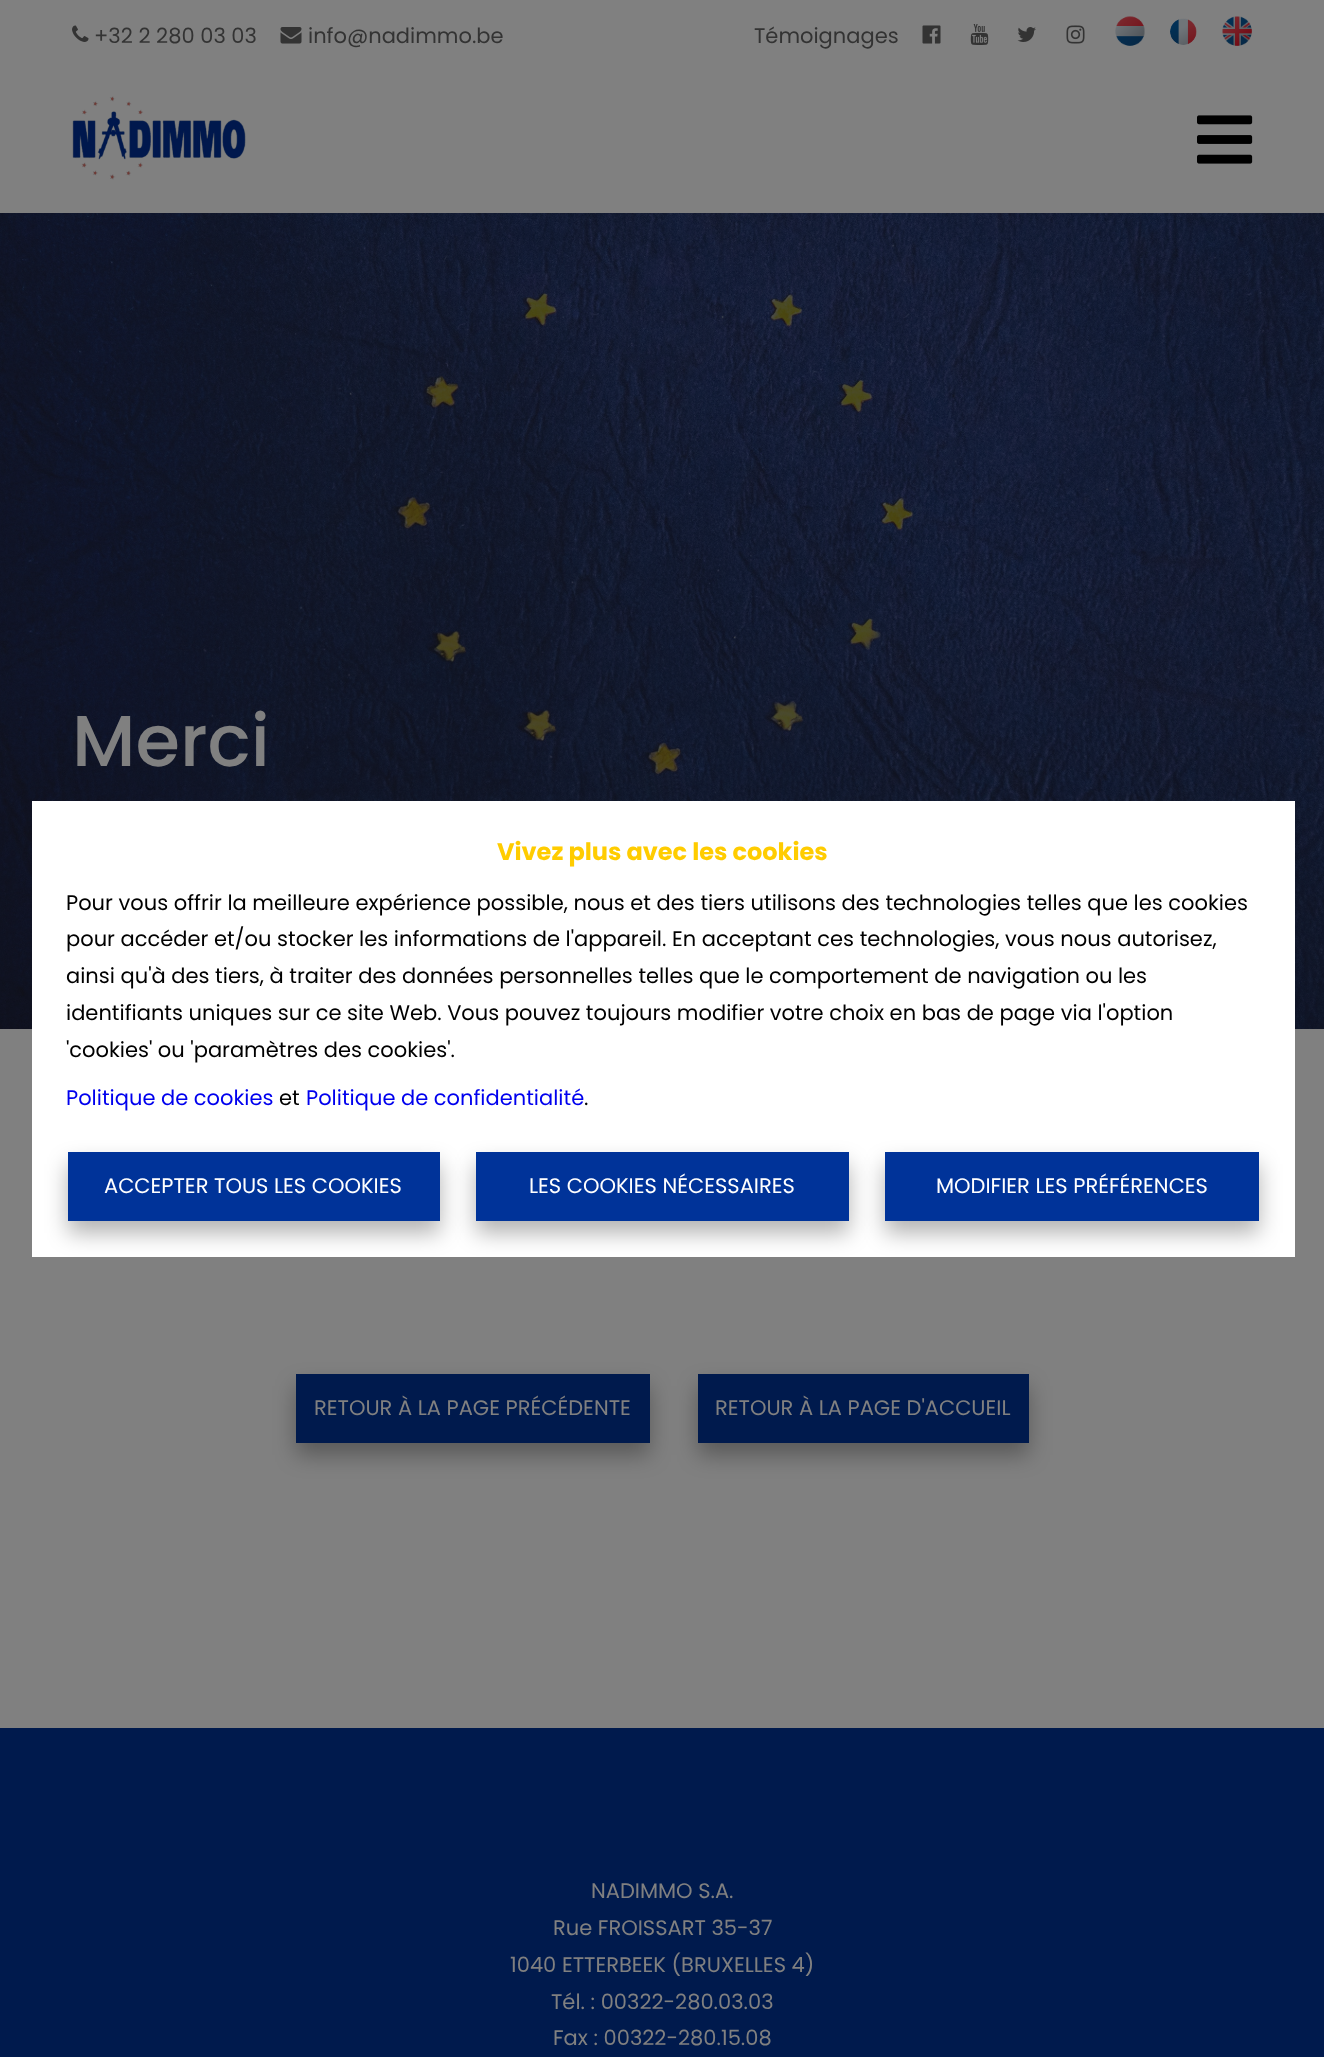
<svg xmlns="http://www.w3.org/2000/svg" width="1324" height="2057">
<rect width="100%" height="100%" fill="#808080"/>
<image x="72" y="25" width="17" height="17" href="media/1.png"/>
<text x="94" y="43" style="font-family:Poppins;font-size:21px;fill:#333">+32 2 280 03 03</text>
<image x="280" y="27" width="22" height="17" href="media/2.png"/>
<text x="308" y="43" style="font-family:Poppins;font-size:21px;fill:#333">info@nadimmo.be</text>
<text x="754" y="43" style="font-family:Poppins;font-size:21px;fill:#333">Témoignages</text>
<image x="922" y="25" width="19" height="19" href="media/3.png"/>
<image x="970" y="24" width="19" height="21" href="media/4.png"/>
<image x="1017" y="27" width="19" height="15" href="media/5.png"/>
<image x="1066" y="25" width="19" height="19" href="media/6.png"/>
<image x="1115" y="16" width="30" height="30" href="media/7.png"/>
<image x="1170" y="18" width="27" height="27" href="media/8.png"/>
<image x="1222" y="16" width="30" height="30" href="media/9.png"/>
<image x="72" y="96" width="174" height="84" href="media/10.png"/>
<image x="1197" y="115" width="56" height="49" href="media/11.png"/>
<image x="0" y="213" width="1324" height="816" href="media/12.png"/>
<text x="72" y="766" style="font-family:Poppins;font-size:72px;font-weight:500;fill:#808080">Merci</text>
<rect x="32" y="801" width="1263" height="456" fill="#fff"/>
<text x="497" y="860" style="font-family:Poppins;font-size:24px;font-weight:bold;fill:#fc0">Vivez plus avec les cookies</text>
<text x="66" y="910" style="font-family:Poppins;font-size:21px;fill:#000">Pour vous offrir la meilleure expérience possible, nous et des tiers utilisons des technologies telles que les cookies</text>
<text x="66" y="946" style="font-family:Poppins;font-size:21px;fill:#000">pour accéder et/ou stocker les informations de l'appareil. En acceptant ces technologies, vous nous autorisez,</text>
<text x="66" y="983" style="font-family:Poppins;font-size:21px;fill:#000">ainsi qu'à des tiers, à traiter des données personnelles telles que le comportement de navigation ou les</text>
<text x="66" y="1020" style="font-family:Poppins;font-size:21px;fill:#000">identifiants uniques sur ce site Web. Vous pouvez toujours modifier votre choix en bas de page via l'option</text>
<text x="66" y="1057" style="font-family:Poppins;font-size:21px;fill:#000">'cookies' ou 'paramètres des cookies'.</text>
<text x="66" y="1105" style="font-family:Poppins;font-size:21px;fill:#00e">Politique de cookies</text>
<text x="279" y="1105" style="font-family:Poppins;font-size:21px;fill:#000">et</text>
<text x="306" y="1105" style="font-family:Poppins;font-size:21px;fill:#00e">Politique de confidentialité</text>
<text x="584" y="1105" style="font-family:Poppins;font-size:21px;fill:#000">.</text>
<rect x="68" y="1164" width="372" height="69" fill="#0000004d" filter="blur(11px)"/>
<rect x="68" y="1152" width="372" height="69" fill="#039"/>
<text x="104" y="1193" style="font-family:Poppins;font-size:21px;fill:#fff">ACCEPTER TOUS LES COOKIES</text>
<rect x="476" y="1164" width="373" height="69" fill="#0000004d" filter="blur(11px)"/>
<rect x="476" y="1152" width="373" height="69" fill="#039"/>
<text x="529" y="1193" style="font-family:Poppins;font-size:21px;fill:#fff">LES COOKIES NÉCESSAIRES</text>
<rect x="885" y="1164" width="374" height="69" fill="#0000004d" filter="blur(11px)"/>
<rect x="885" y="1152" width="374" height="69" fill="#039"/>
<text x="936" y="1193" style="font-family:Poppins;font-size:21px;fill:#fff">MODIFIER LES PRÉFÉRENCES</text>
<rect x="296" y="1386" width="354" height="69" fill="#0000004d" filter="blur(11px)"/>
<rect x="296" y="1374" width="354" height="69" fill="#001a4d"/>
<text x="314" y="1415" style="font-family:Poppins;font-size:21px;fill:#808080">RETOUR À LA PAGE PRÉCÉDENTE</text>
<rect x="698" y="1386" width="331" height="69" fill="#0000004d" filter="blur(11px)"/>
<rect x="698" y="1374" width="331" height="69" fill="#001a4d"/>
<text x="715" y="1415" style="font-family:Poppins;font-size:21px;fill:#808080">RETOUR À LA PAGE D'ACCUEIL</text>
<rect y="1728" width="1324" height="329" fill="#001a4d"/>
<text x="591" y="1898" style="font-family:Poppins;font-size:21px;fill:#808080">NADIMMO S.A.</text>
<text x="553" y="1935" style="font-family:Poppins;font-size:21px;fill:#808080">Rue FROISSART 35-37</text>
<text x="510" y="1972" style="font-family:Poppins;font-size:21px;fill:#808080">1040 ETTERBEEK (BRUXELLES 4)</text>
<text x="551" y="2009" style="font-family:Poppins;font-size:21px;fill:#808080">Tél. : 00322-280.03.03</text>
<text x="553" y="2045" style="font-family:Poppins;font-size:21px;fill:#808080">Fax : 00322-280.15.08</text>
</svg>
